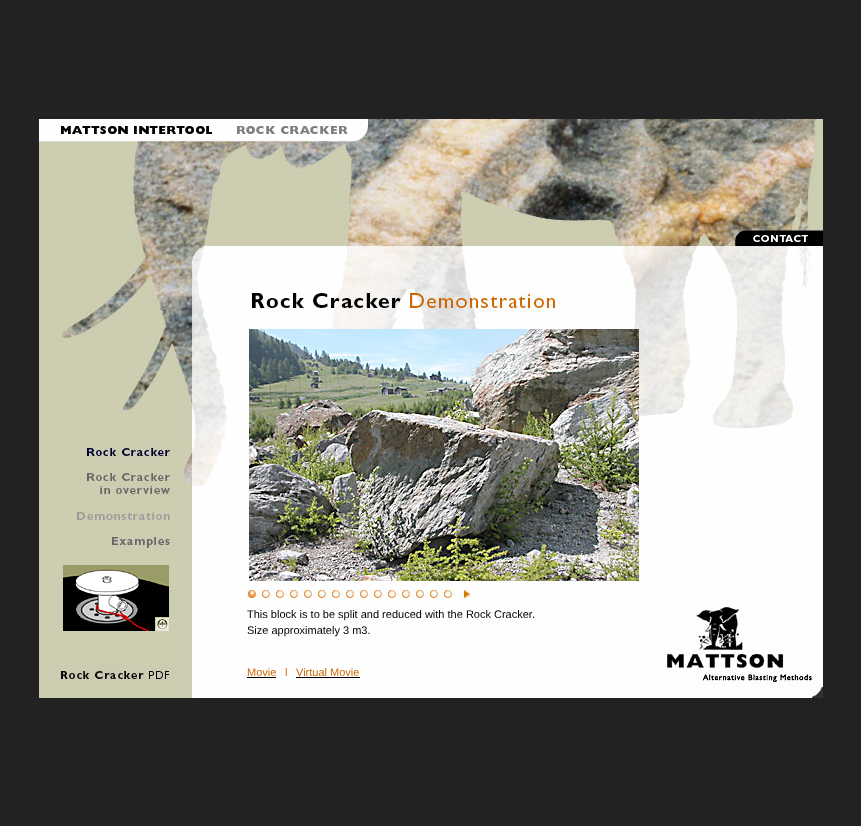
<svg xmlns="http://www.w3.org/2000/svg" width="861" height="826">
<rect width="100%" height="100%" fill="#222"/>
<image x="39" y="119" width="784" height="579" href="media/1.png"/>
<image x="61" y="126" width="162" height="13" href="media/2.png"/>
<image x="225" y="126" width="134" height="14" href="media/3.png"/>
<image x="753" y="235" width="55" height="7" href="media/4.png"/>
<image x="250" y="289" width="555" height="29" href="media/5.png"/>
<image x="86" y="442" width="88" height="16" href="media/6.png"/>
<image x="249" y="329" width="390" height="252" href="media/7.png"/>
<image x="86" y="473" width="88" height="24" href="media/8.png"/>
<image x="70" y="512" width="104" height="8" href="media/9.png"/>
<image x="110" y="537" width="64" height="16" href="media/10.png"/>
<image x="63" y="565" width="106" height="66" href="media/11.png"/>
<image x="246" y="589" width="12" height="10" href="media/12.png"/>
<image x="260" y="589" width="12" height="10" href="media/13.png"/>
<image x="274" y="589" width="12" height="10" href="media/13.png"/>
<image x="288" y="589" width="12" height="10" href="media/13.png"/>
<image x="302" y="589" width="12" height="10" href="media/13.png"/>
<image x="316" y="589" width="12" height="10" href="media/13.png"/>
<image x="330" y="589" width="12" height="10" href="media/13.png"/>
<image x="344" y="589" width="12" height="10" href="media/13.png"/>
<image x="358" y="589" width="12" height="10" href="media/13.png"/>
<image x="372" y="589" width="12" height="10" href="media/13.png"/>
<image x="386" y="589" width="12" height="10" href="media/13.png"/>
<image x="400" y="589" width="12" height="10" href="media/13.png"/>
<image x="414" y="589" width="12" height="10" href="media/13.png"/>
<image x="428" y="589" width="12" height="10" href="media/13.png"/>
<image x="442" y="589" width="12" height="10" href="media/13.png"/>
<image x="460" y="587" width="13" height="14" href="media/14.png"/>
<text x="247" y="618" style="font-family:Liberation Sans;font-size:11px;fill:#000">This block is to be split and reduced with the Rock Cracker.</text>
<text x="247" y="634" style="font-family:Liberation Sans;font-size:11px;fill:#000">Size approximately 3 m3.</text>
<image x="54" y="665" width="120" height="16" href="media/15.png"/>
<text x="247" y="676" style="font-family:Liberation Sans;font-size:11px;fill:#c60">Movie</text>
<rect x="247" y="677" width="29" height="1" fill="#000"/>
<text x="285" y="676" style="font-family:Liberation Sans;font-size:11px;fill:#c60">l</text>
<text x="296" y="676" style="font-family:Liberation Sans;font-size:11px;fill:#c60">Virtual Movie</text>
<rect x="296" y="677" width="64" height="1" fill="#000"/>
</svg>
